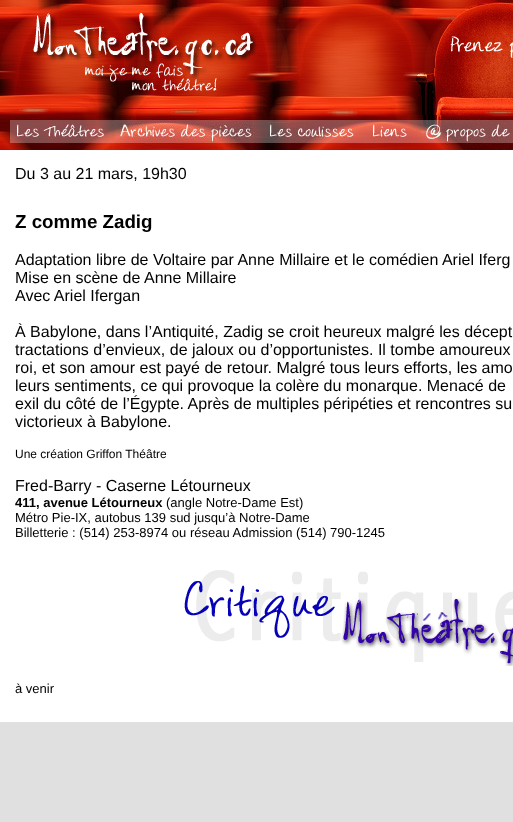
<svg xmlns="http://www.w3.org/2000/svg" width="513" height="822">
<rect width="100%" height="100%" fill="#e0e0e0"/>
<rect y="150" width="513" height="572" fill="#fff"/>
<image x="0" y="0" width="513" height="115" href="media/1.png"/>
<image x="0" y="115" width="112" height="35" href="media/2.png"/>
<image x="112" y="115" width="148" height="35" href="media/3.png"/>
<image x="260" y="115" width="103" height="35" href="media/4.png"/>
<image x="363" y="115" width="54" height="35" href="media/5.png"/>
<image x="417" y="115" width="96" height="35" href="media/6.png"/>
<text x="15" y="179" style="font-family:Liberation Sans;font-size:16px;fill:#000">Du 3 au 21 mars, 19h30</text>
<text x="15" y="228" style="font-family:Liberation Sans;font-size:18.75px;font-weight:bold;fill:#000">Z comme Zadig</text>
<text x="15" y="265" style="font-family:Liberation Sans;font-size:16px;fill:#000">Adaptation libre de Voltaire par Anne Millaire et le comédien Ariel Iferg</text>
<text x="15" y="283" style="font-family:Liberation Sans;font-size:16px;fill:#000">Mise en scène de Anne Millaire</text>
<text x="15" y="301" style="font-family:Liberation Sans;font-size:16px;fill:#000">Avec Ariel Ifergan</text>
<text x="15" y="337" style="font-family:Liberation Sans;font-size:16px;fill:#000">À Babylone, dans l’Antiquité, Zadig se croit heureux malgré les décept</text>
<text x="15" y="355" style="font-family:Liberation Sans;font-size:16px;fill:#000">tractations d’envieux, de jaloux ou d’opportunistes. Il tombe amoureux</text>
<text x="15" y="373" style="font-family:Liberation Sans;font-size:16px;fill:#000">roi, et son amour est payé de retour. Malgré tous leurs efforts, les amo</text>
<text x="15" y="391" style="font-family:Liberation Sans;font-size:16px;fill:#000">leurs sentiments, ce qui provoque la colère du monarque. Menacé de</text>
<text x="15" y="409" style="font-family:Liberation Sans;font-size:16px;fill:#000">exil du côté de l’Égypte. Après de multiples péripéties et rencontres su</text>
<text x="15" y="427" style="font-family:Liberation Sans;font-size:16px;fill:#000">victorieux à Babylone.</text>
<text x="15" y="458" style="font-family:Liberation Sans;font-size:12px;fill:#000">Une création Griffon Théâtre</text>
<text x="15" y="491" style="font-family:Liberation Sans;font-size:16px;fill:#000">Fred-Barry - Caserne Létourneux</text>
<text x="15" y="507" style="font-family:Liberation Sans;font-size:13px;font-weight:bold;fill:#000">411, avenue Létourneux</text>
<text x="166" y="507" style="font-family:Liberation Sans;font-size:13px;fill:#000">(angle Notre-Dame Est)</text>
<text x="15" y="522" style="font-family:Liberation Sans;font-size:13px;fill:#000">Métro Pie-IX, autobus 139 sud jusqu’à Notre-Dame</text>
<text x="15" y="537" style="font-family:Liberation Sans;font-size:13px;fill:#000">Billetterie : (514) 253-8974 ou réseau Admission (514) 790-1245</text>
<image x="184" y="570" width="329" height="96" href="media/7.png"/>
<text x="15" y="693" style="font-family:Liberation Sans;font-size:13px;fill:#000">à venir</text>
</svg>
